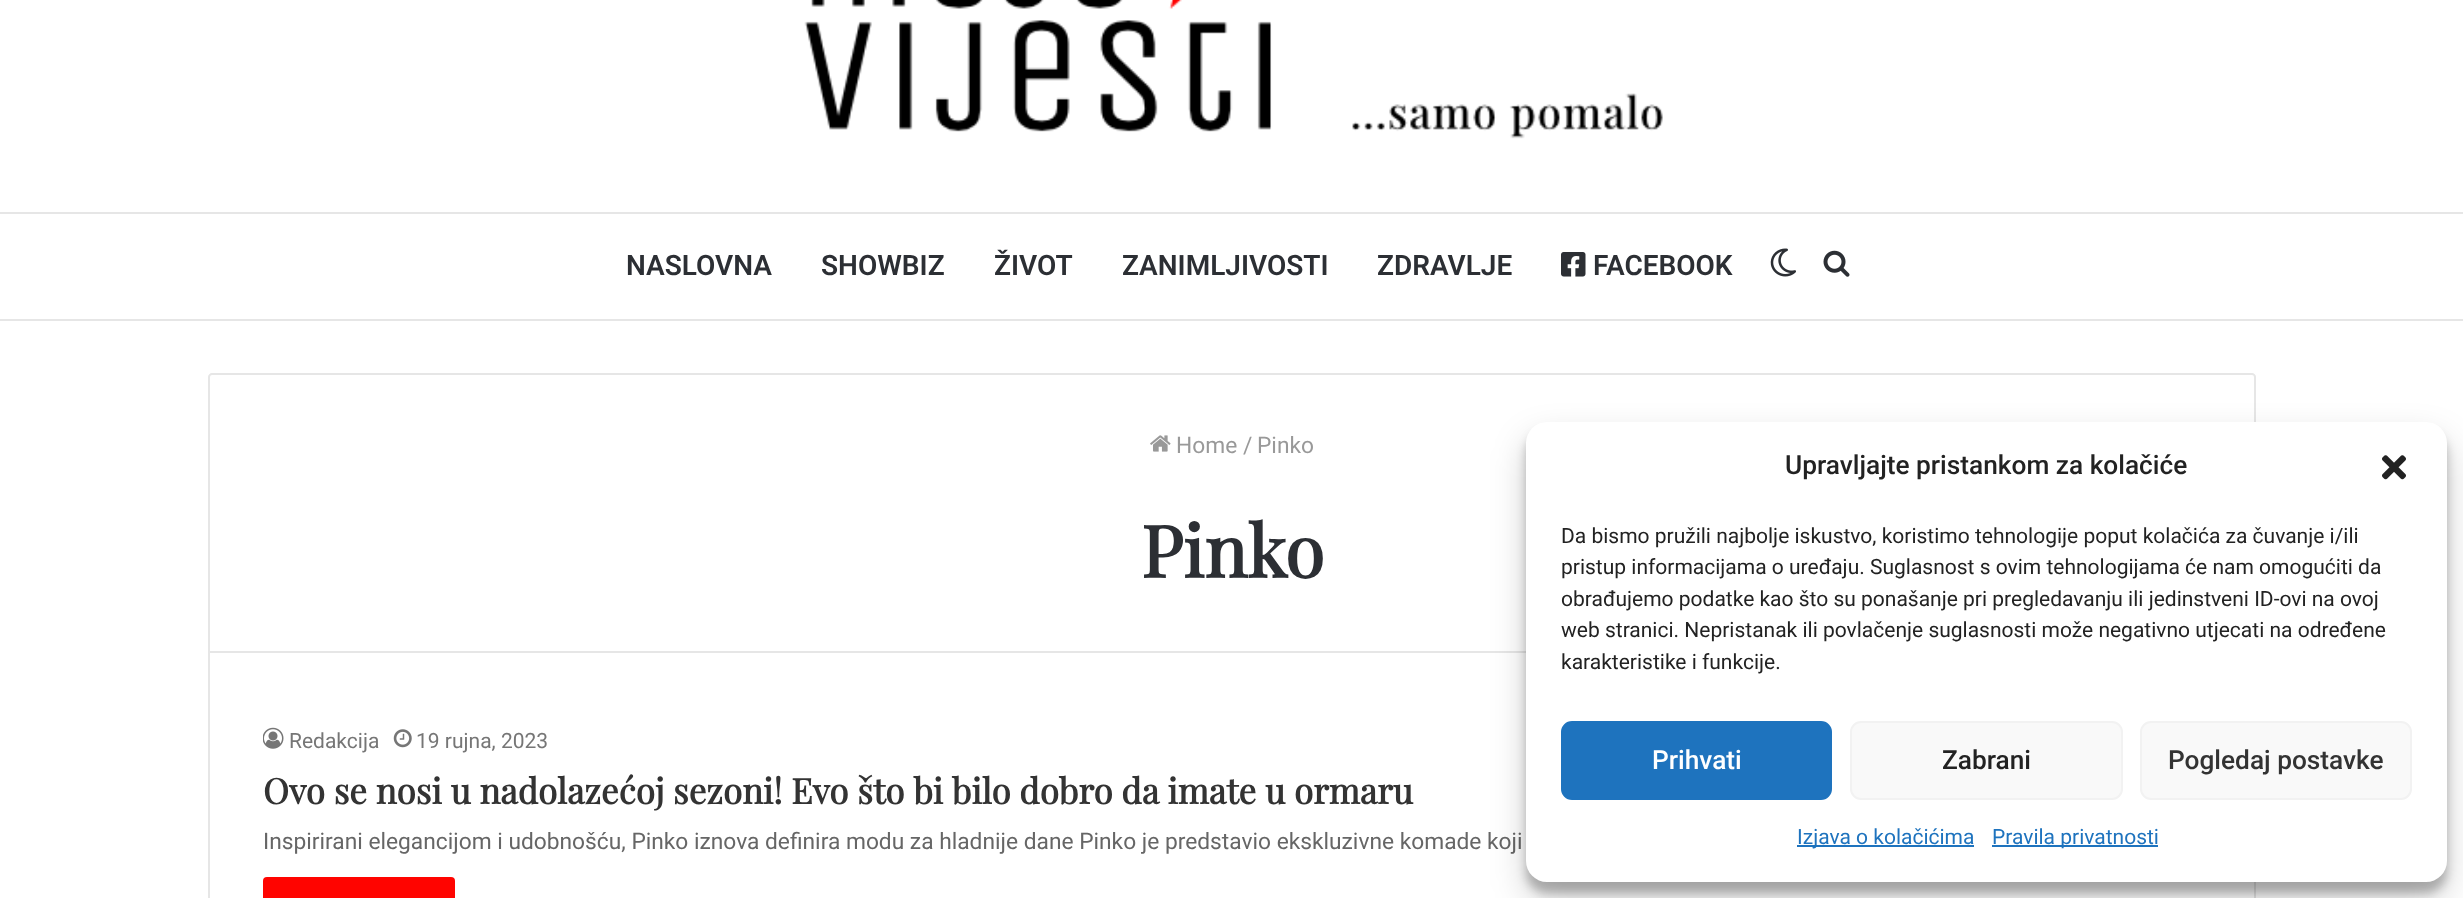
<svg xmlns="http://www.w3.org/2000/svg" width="2463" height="898">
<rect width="100%" height="100%" fill="#fff"/>
<image x="804" y="0" width="859" height="139" href="media/1.png"/>
<rect y="212" width="2463" height="2" fill="#e6e6e6"/>
<rect y="319" width="2463" height="2" fill="#e6e6e6"/>
<text x="626" y="275" style="font-family:Roboto;font-size:28px;font-weight:600;fill:#2c2f34">NASLOVNA</text>
<text x="821" y="275" style="font-family:Roboto;font-size:28px;font-weight:600;fill:#2c2f34">SHOWBIZ</text>
<text x="994" y="275" style="font-family:Roboto;font-size:28px;font-weight:600;fill:#2c2f34">ŽIVOT</text>
<text x="1122" y="275" style="font-family:Roboto;font-size:28px;font-weight:600;fill:#2c2f34">ZANIMLJIVOSTI</text>
<text x="1377" y="275" style="font-family:Roboto;font-size:28px;font-weight:600;fill:#2c2f34">ZDRAVLJE</text>
<image x="1561" y="252" width="25" height="25" href="media/2.png"/>
<text x="1593" y="275" style="font-family:Roboto;font-size:28px;font-weight:600;fill:#2c2f34">FACEBOOK</text>
<image x="1770" y="248" width="26" height="29" href="media/3.png"/>
<image x="1823" y="250" width="27" height="27" href="media/4.png"/>
<path d="M212 374h2040c1.5 0 3 1.5 3 3v275h-2046v-275c0-1.5 1.5-3 3-3z" fill="none" stroke="#e6e6e6" stroke-width="2"/>
<image x="1150" y="435" width="21" height="17" href="media/5.png"/>
<text x="1176" y="453" style="font-family:Roboto;font-size:22.75px;fill:#999">Home</text>
<text x="1243" y="453" style="font-family:Roboto;font-size:22.75px;fill:#999">/</text>
<text x="1257" y="453" style="font-family:Roboto;font-size:22.75px;fill:#999">Pinko</text>
<text x="1141" y="578" style="font-family:Playfair Display;font-size:72px;font-weight:bold;fill:#2c2f34">Pinko</text>
<rect x="2254" y="882" width="2" height="16" fill="#e6e6e6"/>
<rect x="208" y="653" width="2" height="245" fill="#e6e6e6"/>
<image x="263" y="727" width="21" height="22" href="media/6.png"/>
<text x="289" y="748" style="font-family:Roboto;font-size:21px;fill:#767676">Redakcija</text>
<image x="393" y="729" width="19" height="19" href="media/7.png"/>
<text x="416" y="748" style="font-family:Roboto;font-size:21px;fill:#767676">19 rujna, 2023</text>
<text x="263" y="804" style="font-family:Playfair Display;font-size:35px;font-weight:bold;fill:#333">Ovo se nosi u nadolazećoj sezoni! Evo što bi bilo dobro da imate u ormaru</text>
<text x="263" y="849" style="font-family:Roboto;font-size:22.75px;fill:#666">Inspirirani elegancijom i udobnošću, Pinko iznova definira modu za hladnije dane Pinko je predstavio ekskluzivne komade koji</text>
<rect x="263" y="877" width="192" height="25" rx="4" fill="#ff0400"/>
<rect x="1526" y="432" width="921" height="461" rx="21" fill="#0000003b" filter="blur(5px)"/>
<rect x="1526" y="439" width="921" height="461" rx="21" fill="#00000030" filter="blur(17.5px)"/>
<rect x="1526" y="422" width="921" height="460" rx="21" fill="#fff"/>
<text x="1785" y="474" style="font-family:Roboto;font-size:26.25px;font-weight:500;fill:#222">Upravljajte pristankom za kolačiće</text>
<image x="2382" y="455" width="24" height="25" href="media/8.png"/>
<text x="1561" y="543" style="font-family:Roboto;font-size:21px;fill:#222">Da bismo pružili najbolje iskustvo, koristimo tehnologije poput kolačića za čuvanje i/ili</text>
<text x="1561" y="574" style="font-family:Roboto;font-size:21px;fill:#222">pristup informacijama o uređaju. Suglasnost s ovim tehnologijama će nam omogućiti da</text>
<text x="1561" y="606" style="font-family:Roboto;font-size:21px;fill:#222">obrađujemo podatke kao što su ponašanje pri pregledavanju ili jedinstveni ID-ovi na ovoj</text>
<text x="1561" y="637" style="font-family:Roboto;font-size:21px;fill:#222">web stranici. Nepristanak ili povlačenje suglasnosti može negativno utjecati na određene</text>
<text x="1561" y="669" style="font-family:Roboto;font-size:21px;fill:#222">karakteristike i funkcije.</text>
<rect x="1562" y="722" width="269" height="77" rx="10" fill="#1e73be" stroke="#1e73be" stroke-width="2"/>
<text x="1652" y="769" style="font-family:Roboto;font-size:26.25px;font-weight:500;fill:#fff">Prihvati</text>
<rect x="1851" y="722" width="271" height="77" rx="10" fill="#f9f9f9" stroke="#f2f2f2" stroke-width="2"/>
<text x="1942" y="769" style="font-family:Roboto;font-size:26.25px;font-weight:500;fill:#222">Zabrani</text>
<rect x="2141" y="722" width="270" height="77" rx="10" fill="#f9f9f9" stroke="#f2f2f2" stroke-width="2"/>
<text x="2168" y="769" style="font-family:Roboto;font-size:26.25px;font-weight:500;fill:#333">Pogledaj postavke</text>
<rect x="1797" y="845" width="177" height="2" fill="#1e73be"/>
<text x="1797" y="844" style="font-family:Roboto;font-size:21px;fill:#1e73be">Izjava o kolačićima</text>
<rect x="1992" y="845" width="166" height="2" fill="#1e73be"/>
<text x="1992" y="844" style="font-family:Roboto;font-size:21px;fill:#1e73be">Pravila privatnosti</text>
</svg>
